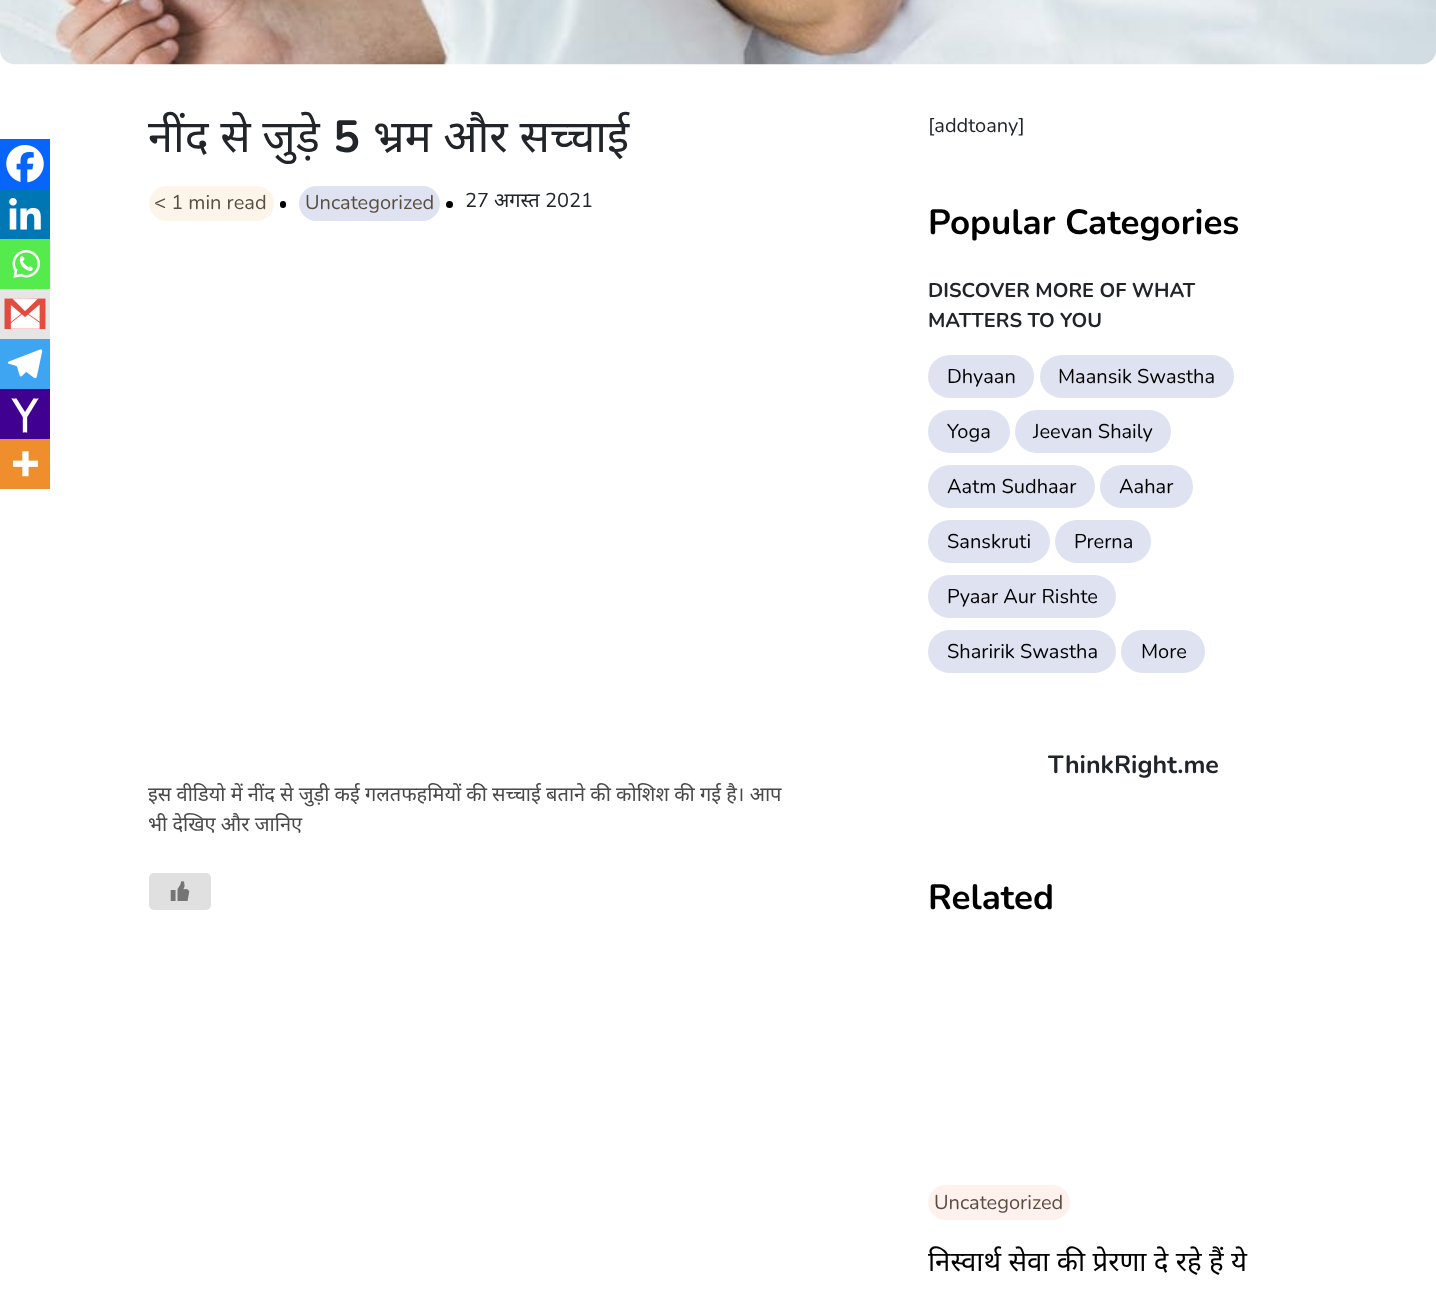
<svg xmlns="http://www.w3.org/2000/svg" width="1436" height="1299">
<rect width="100%" height="100%" fill="#fff"/>
<image x="0" y="0" width="1436" height="65" href="media/1.png"/>
<text x="148" y="152" style="font-family:Noto Sans;font-size:45px;fill:#212529">नींद से जुड़े</text>
<text x="333" y="152" style="font-family:Nunito;font-size:45px;font-weight:bold;fill:#212529">5</text>
<text x="373" y="152" style="font-family:Noto Sans;font-size:45px;fill:#212529">भ्रम और सच्चाई</text>
<rect x="149" y="186" width="125" height="35" rx="17.5" fill="#fef5ea"/>
<text x="154" y="209" style="font-family:Nunito;font-size:20px;fill:#594e42">&lt; 1 min read</text>
<rect x="280" y="201" width="6" height="7" rx="3" fill="#000"/>
<rect x="299" y="186" width="141" height="35" rx="17.5" fill="#dfe2f1"/>
<text x="305" y="209" style="font-family:Nunito;font-size:20px;fill:#594e42">Uncategorized</text>
<circle cx="449.5" cy="204.5" r="3.5" fill="#000"/>
<text x="465" y="207" style="font-family:Nunito;font-size:20px;fill:#212529">27</text>
<text x="494" y="207" style="font-family:Noto Sans;font-size:20px;fill:#212529">अगस्त</text>
<text x="545" y="207" style="font-family:Nunito;font-size:20px;fill:#212529">2021</text>
<text x="148" y="801" style="font-family:Noto Sans;font-size:20px;fill:#494949">इस वीडियो में नींद से जुड़ी कई गलतफहमियों की सच्चाई बताने की कोशिश की गई है। आप</text>
<text x="148" y="831" style="font-family:Noto Sans;font-size:20px;fill:#494949">भी देखिए और जानिए</text>
<rect x="149" y="873" width="62" height="37" rx="5" fill="#e0e0e0"/>
<image x="170" y="881" width="20" height="20" href="media/2.png"/>
<text x="928" y="132" style="font-family:Nunito;font-size:20px;fill:#212529">[addtoany]</text>
<text x="928" y="234" style="font-family:Nunito;font-size:35px;font-weight:bold;fill:#000">Popular Categories</text>
<text x="928" y="297" style="font-family:Nunito;font-size:20px;font-weight:bold;fill:#212529">DISCOVER MORE OF WHAT</text>
<text x="928" y="327" style="font-family:Nunito;font-size:20px;font-weight:bold;fill:#212529">MATTERS TO YOU</text>
<rect x="928" y="355" width="106" height="43" rx="21.5" fill="#dfe2f1"/>
<text x="947" y="383" style="font-family:Nunito;font-size:20px;fill:#000">Dhyaan</text>
<rect x="1040" y="355" width="194" height="43" rx="21.5" fill="#dfe2f1"/>
<text x="1058" y="383" style="font-family:Nunito;font-size:20px;fill:#000">Maansik Swastha</text>
<rect x="928" y="410" width="82" height="43" rx="21.5" fill="#dfe2f1"/>
<text x="947" y="438" style="font-family:Nunito;font-size:20px;fill:#000">Yoga</text>
<rect x="1015" y="410" width="156" height="43" rx="21.5" fill="#dfe2f1"/>
<text x="1033" y="438" style="font-family:Nunito;font-size:20px;fill:#000">Jeevan Shaily</text>
<rect x="928" y="465" width="167" height="43" rx="21.5" fill="#dfe2f1"/>
<text x="947" y="493" style="font-family:Nunito;font-size:20px;fill:#000">Aatm Sudhaar</text>
<rect x="1100" y="465" width="93" height="43" rx="21.5" fill="#dfe2f1"/>
<text x="1119" y="493" style="font-family:Nunito;font-size:20px;fill:#000">Aahar</text>
<rect x="928" y="520" width="122" height="43" rx="21.5" fill="#dfe2f1"/>
<text x="947" y="548" style="font-family:Nunito;font-size:20px;fill:#000">Sanskruti</text>
<rect x="1055" y="520" width="96" height="43" rx="21.5" fill="#dfe2f1"/>
<text x="1074" y="548" style="font-family:Nunito;font-size:20px;fill:#000">Prerna</text>
<rect x="928" y="575" width="188" height="43" rx="21.5" fill="#dfe2f1"/>
<text x="947" y="603" style="font-family:Nunito;font-size:20px;fill:#000">Pyaar Aur Rishte</text>
<rect x="928" y="630" width="188" height="43" rx="21.5" fill="#dfe2f1"/>
<text x="947" y="658" style="font-family:Nunito;font-size:20px;fill:#000">Sharirik Swastha</text>
<rect x="1121" y="630" width="84" height="43" rx="21.5" fill="#dfe2f1"/>
<text x="1141" y="658" style="font-family:Nunito;font-size:20px;fill:#000">More</text>
<text x="1048" y="773" style="font-family:Nunito;font-size:25px;font-weight:bold;fill:#212529">ThinkRight.me</text>
<text x="928" y="909" style="font-family:Nunito;font-size:35px;font-weight:bold;fill:#000">Related</text>
<rect y="139" width="50" height="50" fill="#0765fe"/>
<image x="6" y="145" width="38" height="38" href="media/3.png"/>
<rect y="189" width="50" height="50" fill="#0077b5"/>
<image x="9" y="198" width="32" height="32" href="media/4.png"/>
<rect y="239" width="50" height="50" fill="#55eb4c"/>
<image x="12" y="250" width="28" height="28" href="media/5.png"/>
<rect y="289" width="50" height="50" fill="#e5e5e5"/>
<image x="4" y="298" width="42" height="31" href="media/6.png"/>
<rect y="339" width="50" height="50" fill="#3da5f1"/>
<image x="7" y="349" width="36" height="30" href="media/7.png"/>
<rect y="389" width="50" height="50" fill="#400090"/>
<image x="11" y="398" width="28" height="35" href="media/8.png"/>
<rect y="439" width="50" height="50" fill="#ee8e2d"/>
<image x="12" y="451" width="26" height="26" href="media/9.png"/>
<rect x="928" y="1185" width="142" height="35" rx="17.5" fill="#fff1ee"/>
<text x="934" y="1209" style="font-family:Nunito;font-size:20px;fill:#594e42">Uncategorized</text>
<text x="928" y="1271" word-spacing="0.25" style="font-family:Noto Sans;font-size:27.5px;fill:#000">निस्वार्थ सेवा की प्रेरणा दे रहे हैं ये</text>
</svg>
